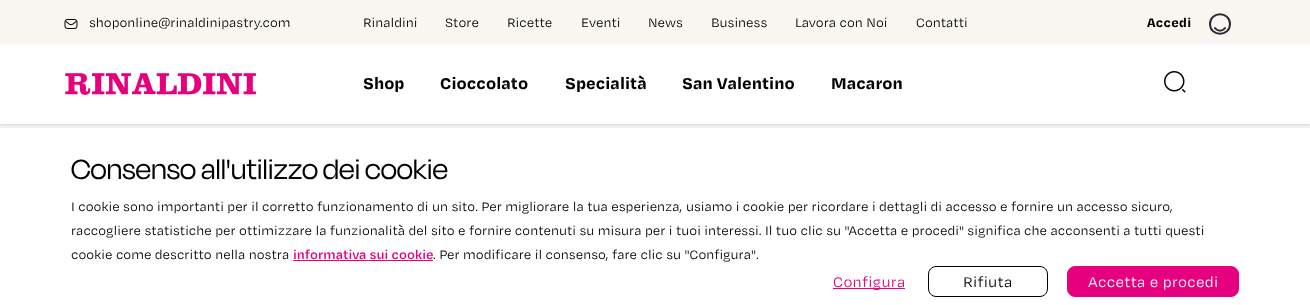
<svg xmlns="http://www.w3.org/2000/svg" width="1310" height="305">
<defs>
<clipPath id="clip1"><rect x="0" y="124" width="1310" height="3"/></clipPath>
</defs>
<rect width="100%" height="100%" fill="#fff"/>
<rect y="124" width="1310" height="3" fill="#faf7f3"/>
<g clip-path="url(#clip1)">
<rect y="1" width="1310" height="124" fill="#00000029" filter="blur(1.5px)"/>
</g>
<rect width="1310" height="44" fill="#faf7f3"/>
<image x="64" y="19" width="14" height="10" href="media/1.png"/>
<text x="89" y="27" style="font-family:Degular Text;font-size:14px;fill:#030000">shoponline@rinaldinipastry.com</text>
<text x="363" y="27" style="font-family:Degular Text;font-size:14px;fill:#030000">Rinaldini</text>
<text x="445" y="27" style="font-family:Degular Text;font-size:14px;fill:#030000">Store</text>
<text x="507" y="27" style="font-family:Degular Text;font-size:14px;fill:#030000">Ricette</text>
<text x="581" y="27" style="font-family:Degular Text;font-size:14px;fill:#030000">Eventi</text>
<text x="648" y="27" style="font-family:Degular Text;font-size:14px;fill:#030000">News</text>
<text x="711" y="27" style="font-family:Degular Text;font-size:14px;fill:#030000">Business</text>
<text x="795" y="27" style="font-family:Degular Text;font-size:14px;fill:#030000">Lavora con Noi</text>
<text x="916" y="27" style="font-family:Degular Text;font-size:14px;fill:#030000">Contatti</text>
<text x="1147" y="27" style="font-family:Degular Text;font-size:14px;font-weight:bold;letter-spacing:0.25px;fill:#030000">Accedi</text>
<path d="M1230 24c0 13-20 13-20 0c0-13 20-13 20 0zm-15 4c2.5 3.5 7.5 3.5 10 0" fill="none" stroke="#292d32" stroke-width="2" stroke-linecap="round" stroke-linejoin="round"/>
<image x="65" y="73" width="191" height="22" href="media/2.png"/>
<text x="363" y="89" style="font-family:Degular Text;font-size:18px;font-weight:bold;fill:#030000">Shop</text>
<text x="440" y="89" style="font-family:Degular Text;font-size:18px;font-weight:bold;fill:#030000">Cioccolato</text>
<text x="565" y="89" style="font-family:Degular Text;font-size:18px;font-weight:bold;fill:#030000">Specialità</text>
<text x="682" y="89" style="font-family:Degular Text;font-size:18px;font-weight:bold;fill:#030000">San Valentino</text>
<text x="831" y="89" style="font-family:Degular Text;font-size:18px;font-weight:bold;fill:#030000">Macaron</text>
<image x="1164" y="71" width="22" height="22" href="media/3.png"/>
<rect y="127" width="1310" height="1" fill="#efefef"/>
<text x="71" y="179" style="font-family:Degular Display;font-size:32px;fill:#030000">Consenso all'utilizzo dei cookie</text>
<text x="71" y="211" style="font-family:Degular Text;font-size:14px;fill:#030000">I cookie sono importanti per il corretto funzionamento di un sito. Per migliorare la tua esperienza, usiamo i cookie per ricordare i dettagli di accesso e fornire un accesso sicuro,</text>
<text x="71" y="235" style="font-family:Degular Text;font-size:14px;fill:#030000">raccogliere statistiche per ottimizzare la funzionalità del sito e fornire contenuti su misura per i tuoi interessi. Il tuo clic su "Accetta e procedi" significa che acconsenti a tutti questi</text>
<text x="71" y="259" style="font-family:Degular Text;font-size:14px;fill:#030000">cookie come descritto nella nostra</text>
<text x="293" y="259" style="font-family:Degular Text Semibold;font-size:14px;font-weight:600;fill:#e6007e">informativa sui cookie</text>
<rect x="293" y="260" width="140" height="1" fill="#e6007e"/>
<text x="433" y="259" style="font-family:Degular Text;font-size:14px;fill:#030000">. Per modificare il consenso, fare clic su "Configura".</text>
<rect x="833" y="288" width="72" height="1" fill="#e6007e"/>
<text x="833" y="287" style="font-family:Degular Text;font-size:16px;letter-spacing:0.25px;fill:#e6007e">Configura</text>
<rect x="928.5" y="266.5" width="119" height="30" rx="7.5" fill="none" stroke="#030000"/>
<text x="963" y="287" style="font-family:Degular Text;font-size:16px;letter-spacing:0.25px;fill:#030000">Rifiuta</text>
<rect x="1067.5" y="266.5" width="171" height="30" rx="7.5" fill="#e6007e" stroke="#e6007e"/>
<text x="1088" y="287" style="font-family:Degular Text;font-size:16px;letter-spacing:0.25px;fill:#fff">Accetta e procedi</text>
</svg>
